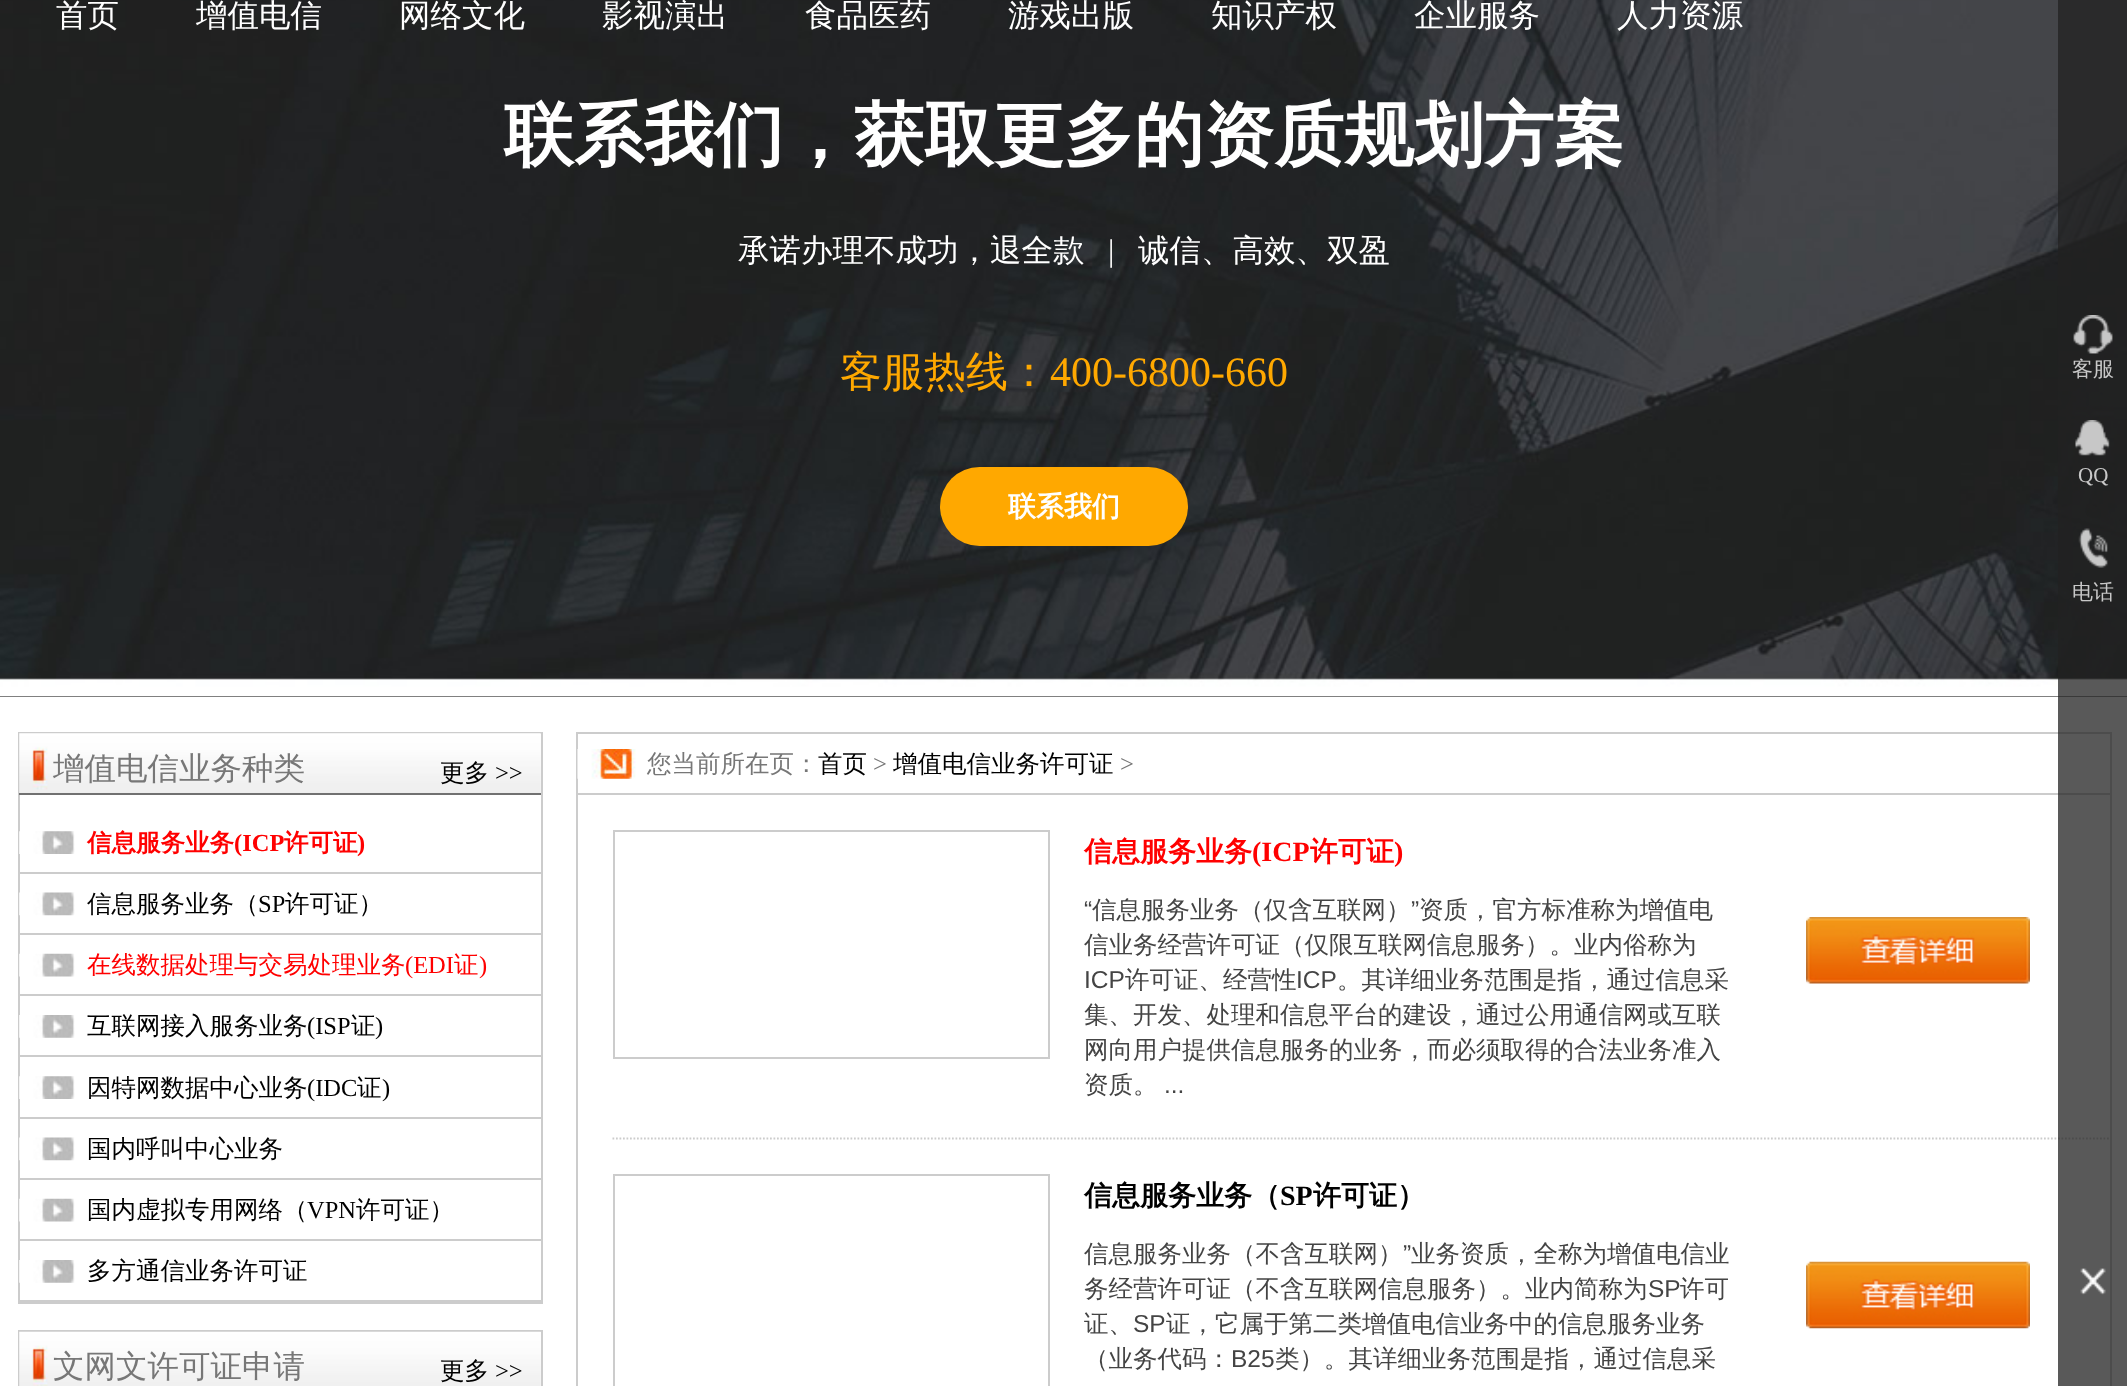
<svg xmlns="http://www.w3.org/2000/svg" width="2127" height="1386">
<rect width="100%" height="100%" fill="#fff"/>
<rect y="696" width="2127" height="1" fill="#000"/>
<image x="0" y="0" width="2127" height="697" href="media/1.png"/>
<text x="56" y="26" style="font-family:WenQuanYi Zen Hei;font-size:31.5px;font-weight:500;fill:#fff">首页</text>
<text x="196" y="26" style="font-family:WenQuanYi Zen Hei;font-size:31.5px;font-weight:500;fill:#fff">增值电信</text>
<text x="399" y="26" style="font-family:WenQuanYi Zen Hei;font-size:31.5px;font-weight:500;fill:#fff">网络文化</text>
<text x="602" y="26" style="font-family:WenQuanYi Zen Hei;font-size:31.5px;font-weight:500;fill:#fff">影视演出</text>
<text x="805" y="26" style="font-family:WenQuanYi Zen Hei;font-size:31.5px;font-weight:500;fill:#fff">食品医药</text>
<text x="1008" y="26" style="font-family:WenQuanYi Zen Hei;font-size:31.5px;font-weight:500;fill:#fff">游戏出版</text>
<text x="1211" y="26" style="font-family:WenQuanYi Zen Hei;font-size:31.5px;font-weight:500;fill:#fff">知识产权</text>
<text x="1414" y="26" style="font-family:WenQuanYi Zen Hei;font-size:31.5px;font-weight:500;fill:#fff">企业服务</text>
<text x="1617" y="26" style="font-family:WenQuanYi Zen Hei;font-size:31.5px;font-weight:500;fill:#fff">人力资源</text>
<text x="504" y="159" style="font-family:WenQuanYi Zen Hei;font-size:70px;font-weight:bold;fill:#fff">联系我们，获取更多的资质规划方案</text>
<text x="738" y="261" style="font-family:WenQuanYi Zen Hei;font-size:31.5px;font-weight:500;fill:#fff">承诺办理不成功，退全款</text>
<text x="1108" y="261" style="font-family:Liberation Serif;font-size:31.5px;fill:#fff">|</text>
<text x="1138" y="261" style="font-family:WenQuanYi Zen Hei;font-size:31.5px;font-weight:500;fill:#fff">诚信、高效、双盈</text>
<text x="840" y="386" style="font-family:WenQuanYi Zen Hei;font-size:42px;font-weight:500;fill:#ffa800">客服热线：</text>
<text x="1050" y="386" style="font-family:Liberation Serif;font-size:42px;fill:#ffa800">400-6800-660</text>
<rect x="940" y="467" width="248" height="79" rx="39.5" fill="#ffa800"/>
<text x="1008" y="516" style="font-family:WenQuanYi Zen Hei;font-size:28px;font-weight:bold;fill:#fff">联系我们</text>
<rect x="19" y="733" width="523" height="570" fill="none" stroke="#ccc" stroke-width="2"/>
<image x="19" y="733" width="522" height="60" href="media/2.png"/>
<rect x="19" y="793" width="522" height="2" fill="#717171"/>
<text x="53" y="779" style="font-family:WenQuanYi Zen Hei;font-size:31.5px;font-weight:500;fill:#777">增值电信业务种类</text>
<text x="440" y="781" style="font-family:WenQuanYi Zen Hei;font-size:24.5px;font-weight:500;fill:#000">更多</text>
<text x="495" y="781" style="font-family:Liberation Serif;font-size:24.5px;fill:#000">&gt;&gt;</text>
<image x="19" y="831" width="56" height="23" href="media/3.png"/>
<rect x="19" y="872" width="522" height="2" fill="#ccc"/>
<text x="87" y="851" style="font-family:WenQuanYi Zen Hei;font-size:24.5px;font-weight:bold;fill:#f00">信息服务业务</text>
<text x="234" y="851" style="font-family:Liberation Serif;font-size:24.5px;font-weight:bold;fill:#f00">(ICP</text>
<text x="284" y="851" style="font-family:WenQuanYi Zen Hei;font-size:24.5px;font-weight:bold;fill:#f00">许可证</text>
<text x="357" y="851" style="font-family:Liberation Serif;font-size:24.5px;font-weight:bold;fill:#f00">)</text>
<image x="19" y="892" width="56" height="24" href="media/4.png"/>
<rect x="19" y="933" width="522" height="2" fill="#ccc"/>
<text x="87" y="912" style="font-family:WenQuanYi Zen Hei;font-size:24.5px;font-weight:500;fill:#000">信息服务业务（</text>
<text x="258" y="912" style="font-family:Liberation Serif;font-size:24.5px;fill:#000">SP</text>
<text x="285" y="912" style="font-family:WenQuanYi Zen Hei;font-size:24.5px;font-weight:500;fill:#000">许可证）</text>
<image x="19" y="953" width="56" height="24" href="media/5.png"/>
<rect x="19" y="994" width="522" height="2" fill="#ccc"/>
<text x="87" y="973" style="font-family:WenQuanYi Zen Hei;font-size:24.5px;font-weight:500;fill:#f00">在线数据处理与交易处理业务</text>
<text x="405" y="973" style="font-family:Liberation Serif;font-size:24.5px;fill:#f00">(EDI</text>
<text x="454" y="973" style="font-family:WenQuanYi Zen Hei;font-size:24.5px;font-weight:500;fill:#f00">证</text>
<text x="479" y="973" style="font-family:Liberation Serif;font-size:24.5px;fill:#f00">)</text>
<image x="19" y="1015" width="56" height="23" href="media/6.png"/>
<rect x="19" y="1055" width="522" height="2" fill="#ccc"/>
<text x="87" y="1034" style="font-family:WenQuanYi Zen Hei;font-size:24.5px;font-weight:500;fill:#000">互联网接入服务业务</text>
<text x="307" y="1034" style="font-family:Liberation Serif;font-size:24.5px;fill:#000">(ISP</text>
<text x="351" y="1034" style="font-family:WenQuanYi Zen Hei;font-size:24.5px;font-weight:500;fill:#000">证</text>
<text x="375" y="1034" style="font-family:Liberation Serif;font-size:24.5px;fill:#000">)</text>
<image x="19" y="1076" width="56" height="23" href="media/3.png"/>
<rect x="19" y="1117" width="522" height="2" fill="#ccc"/>
<text x="87" y="1096" style="font-family:WenQuanYi Zen Hei;font-size:24.5px;font-weight:500;fill:#000">因特网数据中心业务</text>
<text x="307" y="1096" style="font-family:Liberation Serif;font-size:24.5px;fill:#000">(IDC</text>
<text x="357" y="1096" style="font-family:WenQuanYi Zen Hei;font-size:24.5px;font-weight:500;fill:#000">证</text>
<text x="382" y="1096" style="font-family:Liberation Serif;font-size:24.5px;fill:#000">)</text>
<image x="19" y="1137" width="56" height="24" href="media/4.png"/>
<rect x="19" y="1178" width="522" height="2" fill="#ccc"/>
<text x="87" y="1157" style="font-family:WenQuanYi Zen Hei;font-size:24.5px;font-weight:500;fill:#000">国内呼叫中心业务</text>
<image x="19" y="1198" width="56" height="24" href="media/5.png"/>
<rect x="19" y="1239" width="522" height="2" fill="#ccc"/>
<text x="87" y="1218" style="font-family:WenQuanYi Zen Hei;font-size:24.5px;font-weight:500;fill:#000">国内虚拟专用网络（</text>
<text x="307" y="1218" style="font-family:Liberation Serif;font-size:24.5px;fill:#000">VPN</text>
<text x="356" y="1218" style="font-family:WenQuanYi Zen Hei;font-size:24.5px;font-weight:500;fill:#000">许可证）</text>
<image x="19" y="1260" width="56" height="23" href="media/6.png"/>
<rect x="19" y="1300" width="522" height="2" fill="#ccc"/>
<text x="87" y="1279" style="font-family:WenQuanYi Zen Hei;font-size:24.5px;font-weight:500;fill:#000">多方通信业务许可证</text>
<rect x="19" y="1331" width="523" height="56" fill="none" stroke="#ccc" stroke-width="2"/>
<image x="19" y="1331" width="522" height="55" href="media/7.png"/>
<text x="53" y="1377" style="font-family:WenQuanYi Zen Hei;font-size:31.5px;font-weight:500;fill:#777">文网文许可证申请</text>
<text x="440" y="1379" style="font-family:WenQuanYi Zen Hei;font-size:24.5px;font-weight:500;fill:#000">更多</text>
<text x="495" y="1379" style="font-family:Liberation Serif;font-size:24.5px;fill:#000">&gt;&gt;</text>
<rect x="577" y="733" width="1534" height="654" fill="none" stroke="#ccc" stroke-width="2"/>
<image x="577" y="749" width="59" height="30" href="media/8.png"/>
<rect x="578" y="793" width="1533" height="2" fill="#ccc"/>
<text x="647" y="772" style="font-family:WenQuanYi Zen Hei;font-size:24.5px;font-weight:500;fill:#777">您当前所在页：</text>
<text x="818" y="772" style="font-family:WenQuanYi Zen Hei;font-size:24.5px;font-weight:500;fill:#000">首页</text>
<text x="873" y="772" style="font-family:Liberation Serif;font-size:24.5px;fill:#777">&gt;</text>
<text x="893" y="772" style="font-family:WenQuanYi Zen Hei;font-size:24.5px;font-weight:500;fill:#000">增值电信业务许可证</text>
<text x="1120" y="772" style="font-family:Liberation Serif;font-size:24.5px;fill:#777">&gt;</text>
<path d="M612.5 1138.5h1498" fill="none" stroke="#ccc" stroke-width="1.8" stroke-dasharray="1.75 1.75"/>
<rect x="614" y="831" width="435" height="227" fill="none" stroke="#ccc" stroke-width="2"/>
<text x="1084" y="861" style="font-family:WenQuanYi Zen Hei;font-size:28px;font-weight:bold;fill:#f00">信息服务业务</text>
<text x="1252" y="861" style="font-family:Liberation Serif;font-size:28px;font-weight:bold;fill:#f00">(ICP</text>
<text x="1310" y="861" style="font-family:WenQuanYi Zen Hei;font-size:28px;font-weight:bold;fill:#f00">许可证</text>
<text x="1394" y="861" style="font-family:Liberation Serif;font-size:28px;font-weight:bold;fill:#f00">)</text>
<text x="1084" y="918" style="font-family:Liberation Sans;font-size:24.5px;fill:#444">“</text>
<text x="1092" y="918" style="font-family:WenQuanYi Zen Hei;font-size:24.5px;font-weight:500;fill:#444">信息服务业务（仅含互联网）</text>
<text x="1411" y="918" style="font-family:Liberation Sans;font-size:24.5px;fill:#444">”</text>
<text x="1419" y="918" style="font-family:WenQuanYi Zen Hei;font-size:24.5px;font-weight:500;fill:#444">资质，官方标准称为增值电</text>
<text x="1084" y="953" style="font-family:WenQuanYi Zen Hei;font-size:24.5px;font-weight:500;fill:#444">信业务经营许可证（仅限互联网信息服务）。业内俗称为</text>
<text x="1084" y="988" style="font-family:Liberation Sans;font-size:24.5px;fill:#444">ICP</text>
<text x="1125" y="988" style="font-family:WenQuanYi Zen Hei;font-size:24.5px;font-weight:500;fill:#444">许可证、经营性</text>
<text x="1296" y="988" style="font-family:Liberation Sans;font-size:24.5px;fill:#444">ICP</text>
<text x="1337" y="988" style="font-family:WenQuanYi Zen Hei;font-size:24.5px;font-weight:500;fill:#444">。其详细业务范围是指，通过信息采</text>
<text x="1084" y="1023" style="font-family:WenQuanYi Zen Hei;font-size:24.5px;font-weight:500;fill:#444">集、开发、处理和信息平台的建设，通过公用通信网或互联</text>
<text x="1084" y="1058" style="font-family:WenQuanYi Zen Hei;font-size:24.5px;font-weight:500;fill:#444">网向用户提供信息服务的业务，而必须取得的合法业务准入</text>
<text x="1084" y="1093" style="font-family:WenQuanYi Zen Hei;font-size:24.5px;font-weight:500;fill:#444">资质。</text>
<text x="1164" y="1093" style="font-family:Liberation Sans;font-size:24.5px;fill:#444">...</text>
<image x="1806" y="917" width="224" height="67" href="media/9.png"/>
<rect x="614" y="1175" width="435" height="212" fill="none" stroke="#ccc" stroke-width="2"/>
<text x="1084" y="1205" style="font-family:WenQuanYi Zen Hei;font-size:28px;font-weight:bold;fill:#000">信息服务业务（</text>
<text x="1280" y="1205" style="font-family:Liberation Serif;font-size:28px;font-weight:bold;fill:#000">SP</text>
<text x="1313" y="1205" style="font-family:WenQuanYi Zen Hei;font-size:28px;font-weight:bold;fill:#000">许可证）</text>
<text x="1084" y="1262" style="font-family:WenQuanYi Zen Hei;font-size:24.5px;font-weight:500;fill:#444">信息服务业务（不含互联网）</text>
<text x="1403" y="1262" style="font-family:Liberation Sans;font-size:24.5px;fill:#444">”</text>
<text x="1411" y="1262" style="font-family:WenQuanYi Zen Hei;font-size:24.5px;font-weight:500;fill:#444">业务资质，全称为增值电信业</text>
<text x="1084" y="1297" style="font-family:WenQuanYi Zen Hei;font-size:24.5px;font-weight:500;fill:#444">务经营许可证（不含互联网信息服务）。业内简称为</text>
<text x="1648" y="1297" style="font-family:Liberation Sans;font-size:24.5px;fill:#444">SP</text>
<text x="1680" y="1297" style="font-family:WenQuanYi Zen Hei;font-size:24.5px;font-weight:500;fill:#444">许可</text>
<text x="1084" y="1332" style="font-family:WenQuanYi Zen Hei;font-size:24.5px;font-weight:500;fill:#444">证、</text>
<text x="1133" y="1332" style="font-family:Liberation Sans;font-size:24.5px;fill:#444">SP</text>
<text x="1166" y="1332" style="font-family:WenQuanYi Zen Hei;font-size:24.5px;font-weight:500;fill:#444">证，它属于第二类增值电信业务中的信息服务业务</text>
<text x="1084" y="1367" style="font-family:WenQuanYi Zen Hei;font-size:24.5px;font-weight:500;fill:#444">（业务代码：</text>
<text x="1231" y="1367" style="font-family:Liberation Sans;font-size:24.5px;fill:#444">B25</text>
<text x="1275" y="1367" style="font-family:WenQuanYi Zen Hei;font-size:24.5px;font-weight:500;fill:#444">类）。其详细业务范围是指，通过信息采</text>
<image x="1806" y="1261" width="224" height="68" href="media/10.png"/>
<rect x="2058" width="69" height="1386" fill="#222222bf"/>
<image x="2073" y="315" width="40" height="39" href="media/11.png"/>
<text x="2072" y="376" style="font-family:WenQuanYi Zen Hei;font-size:21px;font-weight:500;fill:#c8c8c8">客服</text>
<image x="2075" y="420" width="35" height="36" href="media/12.png"/>
<text x="2078" y="482" style="font-family:Liberation Serif;font-size:21px;fill:#c8c8c8">QQ</text>
<image x="2078" y="528" width="30" height="40" href="media/13.png"/>
<text x="2072" y="599" style="font-family:WenQuanYi Zen Hei;font-size:21px;font-weight:500;fill:#c8c8c8">电话</text>
<image x="2080" y="1268" width="26" height="27" href="media/14.png"/>
</svg>
